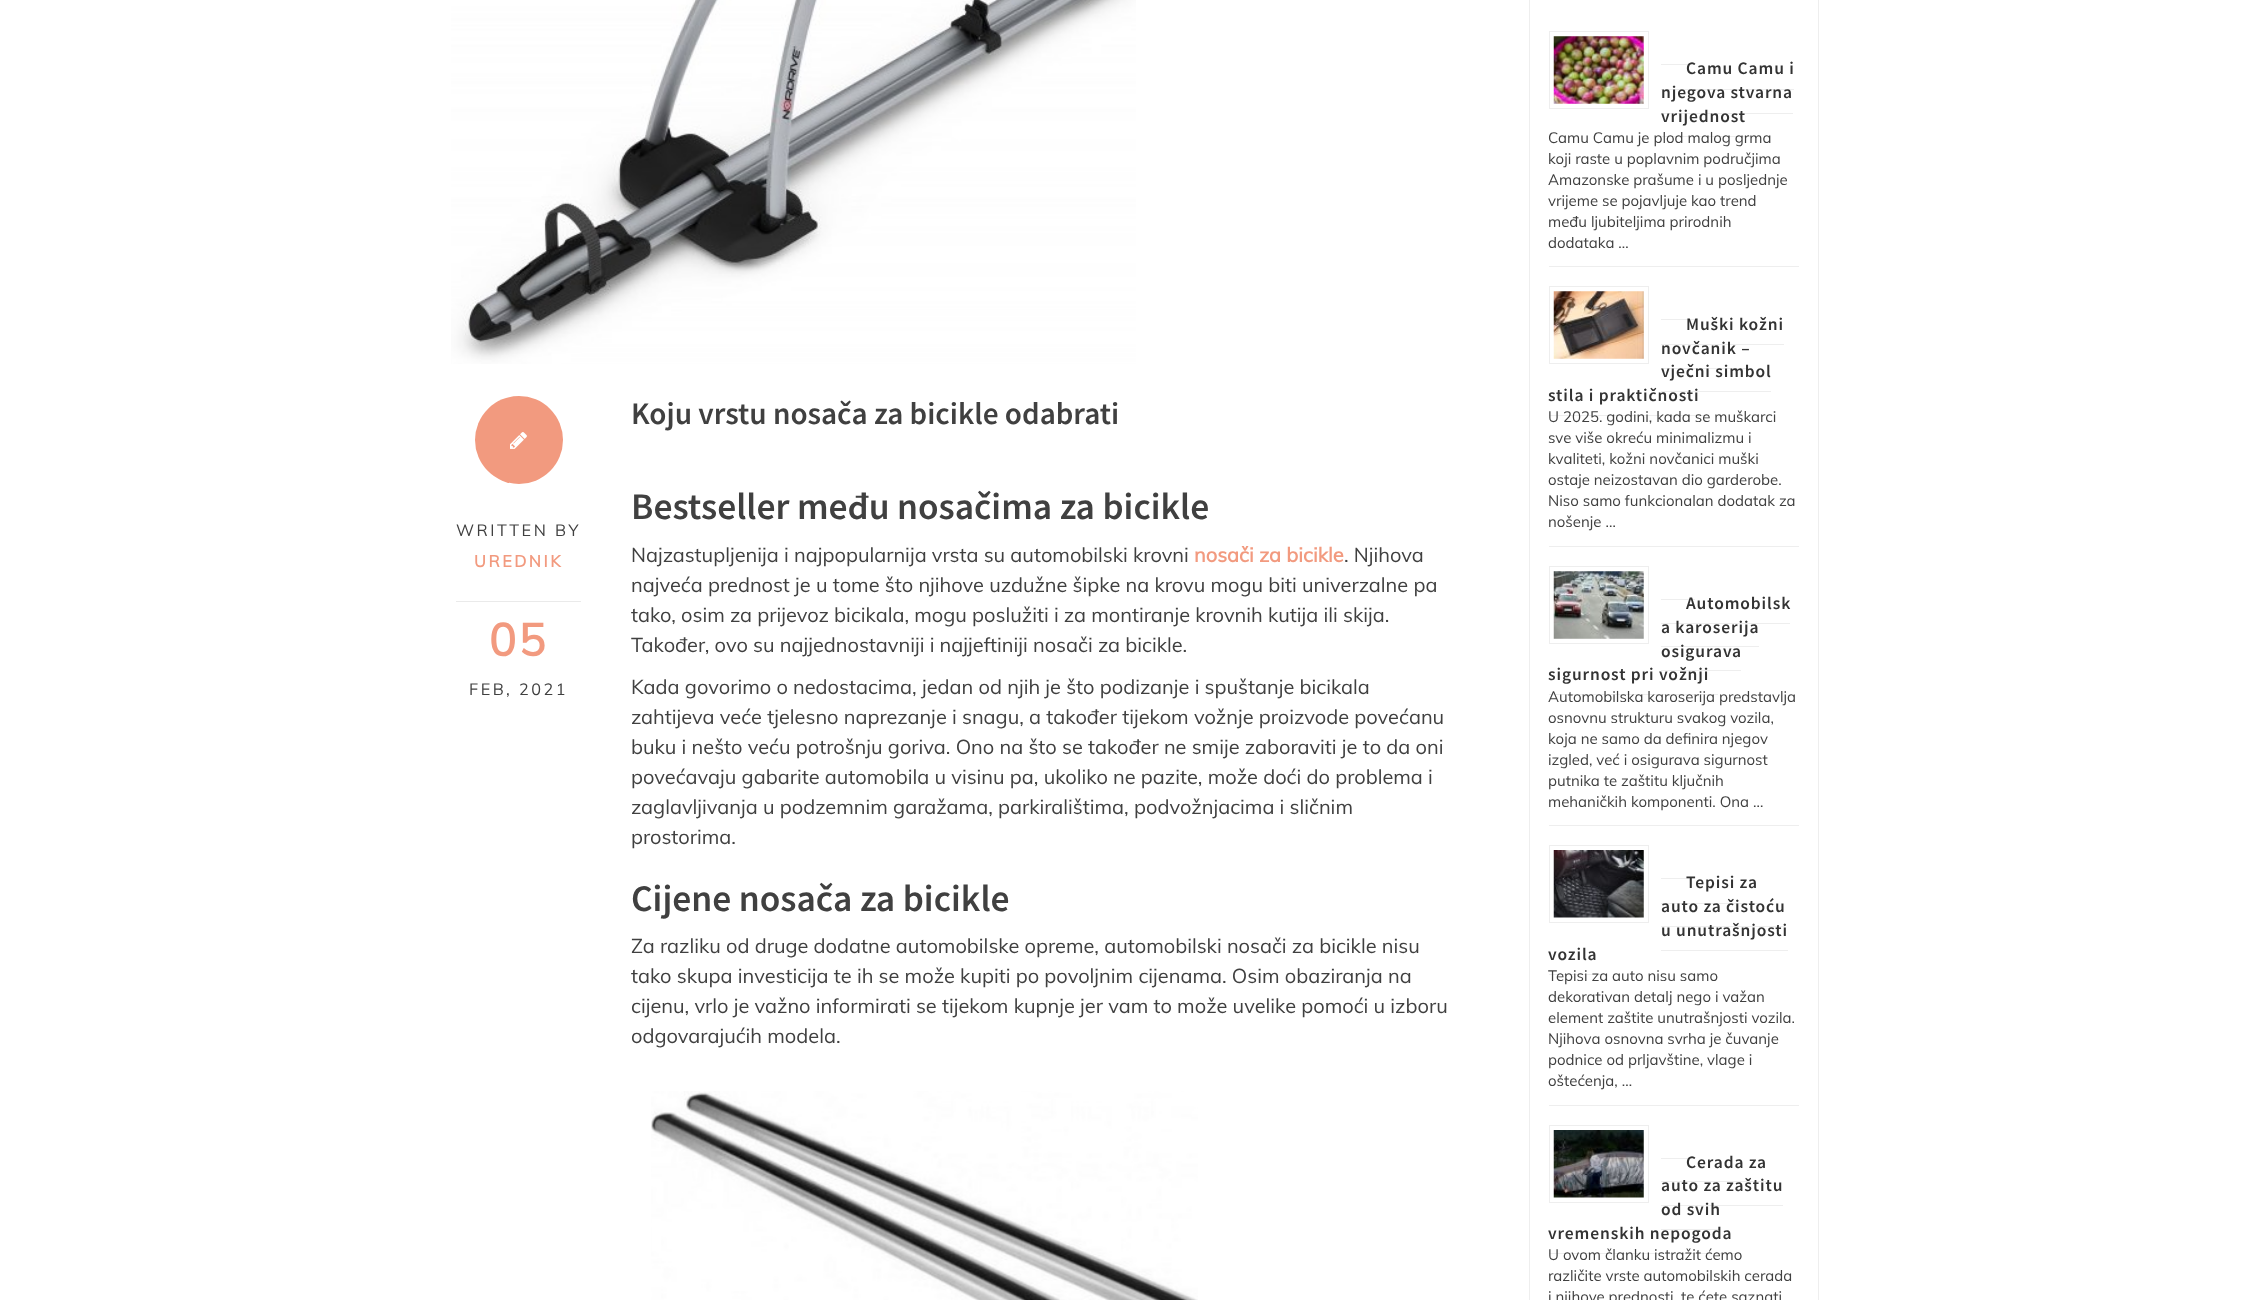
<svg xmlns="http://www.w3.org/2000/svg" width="2250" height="1300">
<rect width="100%" height="100%" fill="#fff"/>
<image x="451" y="0" width="685" height="364" href="media/1.png"/>
<text x="631" y="424" style="font-family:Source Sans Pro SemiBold;font-size:31.25px;font-weight:600;fill:#404040">Koju vrstu nosača za bicikle odabrati</text>
<circle cx="519" cy="440" r="44" fill="#f29a7f"/>
<image x="510" y="432" width="17" height="17" href="media/2.png"/>
<rect x="456" y="601" width="125" height="1" fill="#eaeaea"/>
<text x="456" y="536" style="font-family:Muli;font-size:16.25px;letter-spacing:2.5px;fill:#404040">WRITTEN BY</text>
<text x="474" y="567" style="font-family:Muli;font-size:16.25px;font-weight:bold;letter-spacing:2.5px;fill:#f29a7f">UREDNIK</text>
<text x="489" y="656" style="font-family:Muli;font-size:45px;font-weight:bold;letter-spacing:2.5px;fill:#f29a7f">05</text>
<text x="469" y="695" style="font-family:Muli;font-size:16.25px;letter-spacing:2.5px;fill:#404040">FEB, 2021</text>
<text x="631" y="519" style="font-family:Source Sans Pro SemiBold;font-size:37.5px;font-weight:600;fill:#404040">Bestseller među nosačima za bicikle</text>
<text x="631" y="562" style="font-family:Muli;font-size:20px;fill:#404040">Najzastupljenija i najpopularnija vrsta su automobilski krovni</text>
<text x="1194" y="562" style="font-family:Muli;font-size:20px;font-weight:bold;fill:#f29a7f">nosači za bicikle</text>
<text x="1344" y="562" style="font-family:Muli;font-size:20px;fill:#404040">. Njihova</text>
<text x="631" y="592" style="font-family:Muli;font-size:20px;fill:#404040">najveća prednost je u tome što njihove uzdužne šipke na krovu mogu biti univerzalne pa</text>
<text x="631" y="622" style="font-family:Muli;font-size:20px;fill:#404040">tako, osim za prijevoz bicikala, mogu poslužiti i za montiranje krovnih kutija ili skija.</text>
<text x="631" y="652" style="font-family:Muli;font-size:20px;fill:#404040">Također, ovo su najjednostavniji i najjeftiniji nosači za bicikle.</text>
<text x="631" y="694" style="font-family:Muli;font-size:20px;fill:#404040">Kada govorimo o nedostacima, jedan od njih je što podizanje i spuštanje bicikala</text>
<text x="631" y="724" style="font-family:Muli;font-size:20px;fill:#404040">zahtijeva veće tjelesno naprezanje i snagu, a također tijekom vožnje proizvode povećanu</text>
<text x="631" y="754" style="font-family:Muli;font-size:20px;fill:#404040">buku i nešto veću potrošnju goriva. Ono na što se također ne smije zaboraviti je to da oni</text>
<text x="631" y="784" style="font-family:Muli;font-size:20px;fill:#404040">povećavaju gabarite automobila u visinu pa, ukoliko ne pazite, može doći do problema i</text>
<text x="631" y="814" style="font-family:Muli;font-size:20px;fill:#404040">zaglavljivanja u podzemnim garažama, parkiralištima, podvožnjacima i sličnim</text>
<text x="631" y="844" style="font-family:Muli;font-size:20px;fill:#404040">prostorima.</text>
<text x="631" y="911" style="font-family:Source Sans Pro SemiBold;font-size:37.5px;font-weight:600;fill:#404040">Cijene nosača za bicikle</text>
<text x="631" y="953" style="font-family:Muli;font-size:20px;fill:#404040">Za razliku od druge dodatne automobilske opreme, automobilski nosači za bicikle nisu</text>
<text x="631" y="983" style="font-family:Muli;font-size:20px;fill:#404040">tako skupa investicija te ih se može kupiti po povoljnim cijenama. Osim obaziranja na</text>
<text x="631" y="1013" style="font-family:Muli;font-size:20px;fill:#404040">cijenu, vrlo je važno informirati se tijekom kupnje jer vam to može uvelike pomoći u izboru</text>
<text x="631" y="1043" style="font-family:Muli;font-size:20px;fill:#404040">odgovarajućih modela.</text>
<image x="651" y="1091" width="547" height="209" href="media/3.png"/>
<rect x="1529.5" y="-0.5" width="289" height="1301" fill="none" stroke="#eee"/>
<rect x="1549" y="266" width="250" height="1" fill="#eee"/>
<rect x="1661" y="64" width="34" height="1" fill="#eee"/>
<rect x="1549.5" y="31.5" width="99" height="77" fill="none" stroke="#eee"/>
<image x="1553" y="36" width="91" height="68" href="media/4.png"/>
<text x="1686" y="74" style="font-family:Source Sans Pro SemiBold;font-size:17.5px;font-weight:600;letter-spacing:0.9px;fill:#333">Camu Camu i</text>
<rect x="1661" y="89" width="133" height="1" fill="#eee"/>
<text x="1661" y="98" style="font-family:Source Sans Pro SemiBold;font-size:17.5px;font-weight:600;letter-spacing:0.9px;fill:#333">njegova stvarna</text>
<rect x="1661" y="113" width="132" height="1" fill="#eee"/>
<text x="1661" y="122" style="font-family:Source Sans Pro SemiBold;font-size:17.5px;font-weight:600;letter-spacing:0.9px;fill:#333">vrijednost</text>
<rect x="1661" y="136" width="93" height="1" fill="#eee"/>
<text x="1548" y="143" style="font-family:Muli;font-size:15px;fill:#404040">Camu Camu je plod malog grma</text>
<text x="1548" y="164" style="font-family:Muli;font-size:15px;fill:#404040">koji raste u poplavnim područjima</text>
<text x="1548" y="185" style="font-family:Muli;font-size:15px;fill:#404040">Amazonske prašume i u posljednje</text>
<text x="1548" y="206" style="font-family:Muli;font-size:15px;fill:#404040">vrijeme se pojavljuje kao trend</text>
<text x="1548" y="227" style="font-family:Muli;font-size:15px;fill:#404040">među ljubiteljima prirodnih</text>
<text x="1548" y="248" style="font-family:Muli;font-size:15px;fill:#404040">dodataka …</text>
<rect x="1549" y="546" width="250" height="1" fill="#eee"/>
<rect x="1661" y="319" width="34" height="1" fill="#eee"/>
<rect x="1549.5" y="286.5" width="99" height="77" fill="none" stroke="#eee"/>
<image x="1553" y="291" width="91" height="68" href="media/5.png"/>
<text x="1686" y="330" style="font-family:Source Sans Pro SemiBold;font-size:17.5px;font-weight:600;letter-spacing:0.9px;fill:#333">Muški kožni</text>
<rect x="1661" y="344" width="123" height="1" fill="#eee"/>
<text x="1661" y="354" style="font-family:Source Sans Pro SemiBold;font-size:17.5px;font-weight:600;letter-spacing:0.9px;fill:#333">novčanik –</text>
<rect x="1661" y="368" width="89" height="1" fill="#eee"/>
<text x="1661" y="377" style="font-family:Source Sans Pro SemiBold;font-size:17.5px;font-weight:600;letter-spacing:0.9px;fill:#333">vječni simbol</text>
<rect x="1661" y="391" width="110" height="1" fill="#eee"/>
<text x="1548" y="401" style="font-family:Source Sans Pro SemiBold;font-size:17.5px;font-weight:600;letter-spacing:0.9px;fill:#333">stila i praktičnosti</text>
<rect x="1549" y="415" width="159" height="1" fill="#eee"/>
<text x="1548" y="422" style="font-family:Muli;font-size:15px;fill:#404040">U 2025. godini, kada se muškarci</text>
<text x="1548" y="443" style="font-family:Muli;font-size:15px;fill:#404040">sve više okreću minimalizmu i</text>
<text x="1548" y="464" style="font-family:Muli;font-size:15px;fill:#404040">kvaliteti, kožni novčanici muški</text>
<text x="1548" y="485" style="font-family:Muli;font-size:15px;fill:#404040">ostaje neizostavan dio garderobe.</text>
<text x="1548" y="506" style="font-family:Muli;font-size:15px;fill:#404040">Niso samo funkcionalan dodatak za</text>
<text x="1548" y="527" style="font-family:Muli;font-size:15px;fill:#404040">nošenje …</text>
<rect x="1549" y="825" width="250" height="1" fill="#eee"/>
<rect x="1661" y="599" width="34" height="1" fill="#eee"/>
<rect x="1549.5" y="566.5" width="99" height="77" fill="none" stroke="#eee"/>
<image x="1553" y="571" width="91" height="68" href="media/6.png"/>
<text x="1686" y="609" style="font-family:Source Sans Pro SemiBold;font-size:17.5px;font-weight:600;letter-spacing:0.9px;fill:#333">Automobilsk</text>
<rect x="1661" y="623" width="129" height="1" fill="#eee"/>
<text x="1661" y="633" style="font-family:Source Sans Pro SemiBold;font-size:17.5px;font-weight:600;letter-spacing:0.9px;fill:#333">a karoserija</text>
<rect x="1661" y="646" width="98" height="1" fill="#eee"/>
<text x="1661" y="657" style="font-family:Source Sans Pro SemiBold;font-size:17.5px;font-weight:600;letter-spacing:0.9px;fill:#333">osigurava</text>
<rect x="1661" y="670" width="80" height="1" fill="#eee"/>
<text x="1548" y="680" style="font-family:Source Sans Pro SemiBold;font-size:17.5px;font-weight:600;letter-spacing:0.9px;fill:#333">sigurnost pri vožnji</text>
<rect x="1549" y="694" width="169" height="1" fill="#eee"/>
<text x="1548" y="702" style="font-family:Muli;font-size:15px;fill:#404040">Automobilska karoserija predstavlja</text>
<text x="1548" y="723" style="font-family:Muli;font-size:15px;fill:#404040">osnovnu strukturu svakog vozila,</text>
<text x="1548" y="744" style="font-family:Muli;font-size:15px;fill:#404040">koja ne samo da definira njegov</text>
<text x="1548" y="765" style="font-family:Muli;font-size:15px;fill:#404040">izgled, već i osigurava sigurnost</text>
<text x="1548" y="786" style="font-family:Muli;font-size:15px;fill:#404040">putnika te zaštitu ključnih</text>
<text x="1548" y="807" style="font-family:Muli;font-size:15px;fill:#404040">mehaničkih komponenti. Ona …</text>
<rect x="1549" y="1105" width="250" height="1" fill="#eee"/>
<rect x="1661" y="878" width="34" height="1" fill="#eee"/>
<rect x="1549.5" y="845.5" width="99" height="77" fill="none" stroke="#eee"/>
<image x="1553" y="850" width="91" height="68" href="media/7.png"/>
<text x="1686" y="888" style="font-family:Source Sans Pro SemiBold;font-size:17.5px;font-weight:600;letter-spacing:0.9px;fill:#333">Tepisi za</text>
<rect x="1661" y="903" width="97" height="1" fill="#eee"/>
<text x="1661" y="912" style="font-family:Source Sans Pro SemiBold;font-size:17.5px;font-weight:600;letter-spacing:0.9px;fill:#333">auto za čistoću</text>
<rect x="1661" y="926" width="124" height="1" fill="#eee"/>
<text x="1661" y="936" style="font-family:Source Sans Pro SemiBold;font-size:17.5px;font-weight:600;letter-spacing:0.9px;fill:#333">u unutrašnjosti</text>
<rect x="1661" y="950" width="127" height="1" fill="#eee"/>
<text x="1548" y="960" style="font-family:Source Sans Pro SemiBold;font-size:17.5px;font-weight:600;letter-spacing:0.9px;fill:#333">vozila</text>
<rect x="1549" y="974" width="57" height="1" fill="#eee"/>
<text x="1548" y="981" style="font-family:Muli;font-size:15px;fill:#404040">Tepisi za auto nisu samo</text>
<text x="1548" y="1002" style="font-family:Muli;font-size:15px;fill:#404040">dekorativan detalj nego i važan</text>
<text x="1548" y="1023" style="font-family:Muli;font-size:15px;fill:#404040">element zaštite unutrašnjosti vozila.</text>
<text x="1548" y="1044" style="font-family:Muli;font-size:15px;fill:#404040">Njihova osnovna svrha je čuvanje</text>
<text x="1548" y="1065" style="font-family:Muli;font-size:15px;fill:#404040">podnice od prljavštine, vlage i</text>
<text x="1548" y="1086" style="font-family:Muli;font-size:15px;fill:#404040">oštećenja, …</text>
<rect x="1661" y="1158" width="34" height="1" fill="#eee"/>
<rect x="1549.5" y="1125.5" width="99" height="77" fill="none" stroke="#eee"/>
<image x="1553" y="1130" width="91" height="68" href="media/8.png"/>
<text x="1686" y="1168" style="font-family:Source Sans Pro SemiBold;font-size:17.5px;font-weight:600;letter-spacing:0.9px;fill:#333">Cerada za</text>
<rect x="1661" y="1181" width="105" height="1" fill="#eee"/>
<text x="1661" y="1191" style="font-family:Source Sans Pro SemiBold;font-size:17.5px;font-weight:600;letter-spacing:0.9px;fill:#333">auto za zaštitu</text>
<rect x="1661" y="1205" width="122" height="1" fill="#eee"/>
<text x="1661" y="1215" style="font-family:Source Sans Pro SemiBold;font-size:17.5px;font-weight:600;letter-spacing:0.9px;fill:#333">od svih</text>
<rect x="1661" y="1229" width="59" height="1" fill="#eee"/>
<text x="1548" y="1239" style="font-family:Source Sans Pro SemiBold;font-size:17.5px;font-weight:600;letter-spacing:0.9px;fill:#333">vremenskih nepogoda</text>
<rect x="1549" y="1253" width="192" height="1" fill="#eee"/>
<text x="1548" y="1260" style="font-family:Muli;font-size:15px;fill:#404040">U ovom članku istražit ćemo</text>
<text x="1548" y="1281" style="font-family:Muli;font-size:15px;fill:#404040">različite vrste automobilskih cerada</text>
<text x="1548" y="1302" style="font-family:Muli;font-size:15px;fill:#404040">i njihove prednosti, te ćete saznati</text>
</svg>
